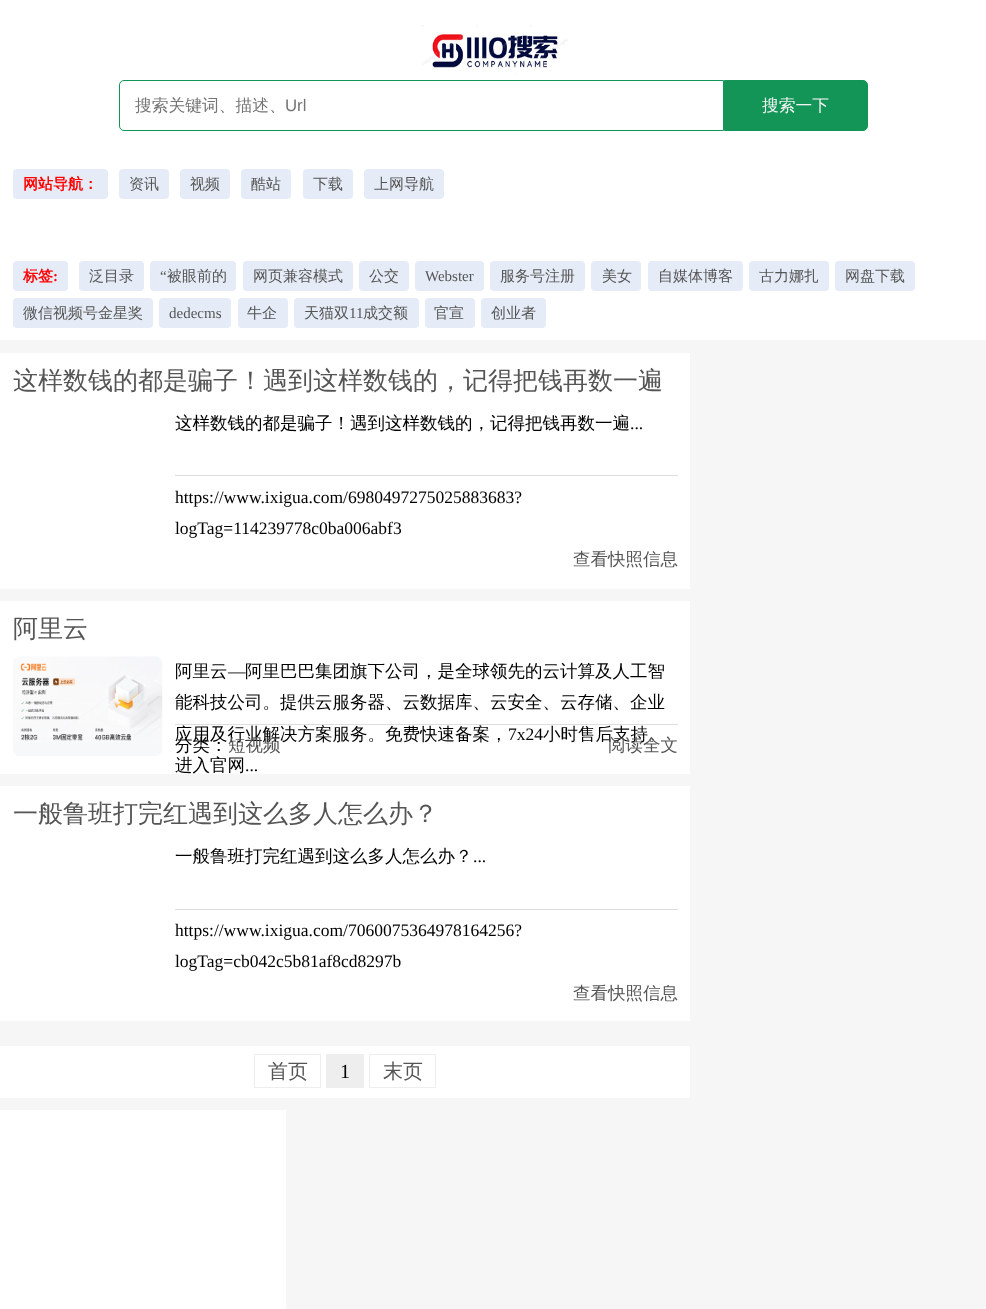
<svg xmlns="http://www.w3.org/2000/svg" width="986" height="1309">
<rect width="100%" height="100%" fill="#f6f6f6"/>
<rect width="986" height="340" fill="#fff"/>
<image x="422" y="25" width="147" height="50" href="media/1.png"/>
<path d="M124 80.5h599.5v50h-599.5c-2.5 0-4.5-2-4.5-4.5v-41c0-2.5 2-4.5 4.5-4.5z" fill="none" stroke="#129557"/>
<text x="135" y="111" style="font-family:WenQuanYi Zen Hei;font-size:16.75px;font-weight:500;fill:#757575">搜索关键词、描述、</text>
<text x="285" y="111" style="font-family:Liberation Sans;font-size:16.75px;fill:#757575">Url</text>
<path d="M724.5 80.5h138.5c2.5 0 4.5 2 4.5 4.5v41c0 2.5-2 4.5-4.5 4.5h-138.5z" fill="#129557" stroke="#129557"/>
<text x="762" y="111" style="font-family:WenQuanYi Zen Hei;font-size:16.75px;font-weight:500;fill:#f4f4f4">搜索一下</text>
<rect x="13" y="169" width="95" height="30" rx="4" fill="#e5ecf7"/>
<text x="23" y="189" style="font-family:WenQuanYi Zen Hei;font-size:15px;font-weight:bold;fill:#f00">网站导航：</text>
<rect x="119" y="169" width="50" height="30" rx="4" fill="#e5ecf7"/>
<text x="129" y="189" style="font-family:WenQuanYi Zen Hei;font-size:15px;font-weight:500;fill:#555">资讯</text>
<rect x="180" y="169" width="50" height="30" rx="4" fill="#e5ecf7"/>
<text x="190" y="189" style="font-family:WenQuanYi Zen Hei;font-size:15px;font-weight:500;fill:#555">视频</text>
<rect x="241" y="169" width="50" height="30" rx="4" fill="#e5ecf7"/>
<text x="251" y="189" style="font-family:WenQuanYi Zen Hei;font-size:15px;font-weight:500;fill:#555">酷站</text>
<rect x="303" y="169" width="50" height="30" rx="4" fill="#e5ecf7"/>
<text x="313" y="189" style="font-family:WenQuanYi Zen Hei;font-size:15px;font-weight:500;fill:#555">下载</text>
<rect x="364" y="169" width="80" height="30" rx="4" fill="#e5ecf7"/>
<text x="374" y="189" style="font-family:WenQuanYi Zen Hei;font-size:15px;font-weight:500;fill:#555">上网导航</text>
<rect x="13" y="261" width="55" height="30" rx="4" fill="#e5ecf7"/>
<text x="23" y="281" style="font-family:WenQuanYi Zen Hei;font-size:15px;font-weight:bold;fill:#f00">标签</text>
<text x="53" y="281" style="font-family:Liberation Serif;font-size:15px;font-weight:bold;fill:#f00">:</text>
<rect x="79" y="261" width="65" height="30" rx="4" fill="#e5ecf7"/>
<text x="89" y="281" style="font-family:WenQuanYi Zen Hei;font-size:15px;font-weight:500;fill:#555">泛目录</text>
<rect x="150" y="261" width="86" height="30" rx="4" fill="#e5ecf7"/>
<text x="160" y="281" style="font-family:Liberation Serif;font-size:15px;fill:#555">“</text>
<text x="167" y="281" style="font-family:WenQuanYi Zen Hei;font-size:15px;font-weight:500;fill:#555">被眼前的</text>
<rect x="243" y="261" width="110" height="30" rx="4" fill="#e5ecf7"/>
<text x="253" y="281" style="font-family:WenQuanYi Zen Hei;font-size:15px;font-weight:500;fill:#555">网页兼容模式</text>
<rect x="359" y="261" width="50" height="30" rx="4" fill="#e5ecf7"/>
<text x="369" y="281" style="font-family:WenQuanYi Zen Hei;font-size:15px;font-weight:500;fill:#555">公交</text>
<rect x="415" y="261" width="69" height="30" rx="4" fill="#e5ecf7"/>
<text x="425" y="281" style="font-family:Liberation Serif;font-size:15px;fill:#555">Webster</text>
<rect x="490" y="261" width="95" height="30" rx="4" fill="#e5ecf7"/>
<text x="500" y="281" style="font-family:WenQuanYi Zen Hei;font-size:15px;font-weight:500;fill:#555">服务号注册</text>
<rect x="591" y="261" width="50" height="30" rx="4" fill="#e5ecf7"/>
<text x="602" y="281" style="font-family:WenQuanYi Zen Hei;font-size:15px;font-weight:500;fill:#555">美女</text>
<rect x="648" y="261" width="95" height="30" rx="4" fill="#e5ecf7"/>
<text x="658" y="281" style="font-family:WenQuanYi Zen Hei;font-size:15px;font-weight:500;fill:#555">自媒体博客</text>
<rect x="749" y="261" width="80" height="30" rx="4" fill="#e5ecf7"/>
<text x="759" y="281" style="font-family:WenQuanYi Zen Hei;font-size:15px;font-weight:500;fill:#555">古力娜扎</text>
<rect x="835" y="261" width="80" height="30" rx="4" fill="#e5ecf7"/>
<text x="845" y="281" style="font-family:WenQuanYi Zen Hei;font-size:15px;font-weight:500;fill:#555">网盘下载</text>
<rect x="13" y="298" width="140" height="30" rx="4" fill="#e5ecf7"/>
<text x="23" y="318" style="font-family:WenQuanYi Zen Hei;font-size:15px;font-weight:500;fill:#555">微信视频号金星奖</text>
<rect x="159" y="298" width="72" height="30" rx="4" fill="#e5ecf7"/>
<text x="169" y="318" style="font-family:Liberation Serif;font-size:15px;fill:#555">dedecms</text>
<rect x="238" y="298" width="50" height="30" rx="4" fill="#e5ecf7"/>
<text x="247" y="318" style="font-family:WenQuanYi Zen Hei;font-size:15px;font-weight:500;fill:#555">牛企</text>
<rect x="294" y="298" width="125" height="30" rx="4" fill="#e5ecf7"/>
<text x="304" y="318" style="font-family:WenQuanYi Zen Hei;font-size:15px;font-weight:500;fill:#555">天猫双</text>
<text x="349" y="318" style="font-family:Liberation Serif;font-size:15px;fill:#555">11</text>
<text x="363" y="318" style="font-family:WenQuanYi Zen Hei;font-size:15px;font-weight:500;fill:#555">成交额</text>
<rect x="425" y="298" width="50" height="30" rx="4" fill="#e5ecf7"/>
<text x="434" y="318" style="font-family:WenQuanYi Zen Hei;font-size:15px;font-weight:500;fill:#555">官宣</text>
<rect x="481" y="298" width="65" height="30" rx="4" fill="#e5ecf7"/>
<text x="491" y="318" style="font-family:WenQuanYi Zen Hei;font-size:15px;font-weight:500;fill:#555">创业者</text>
<rect y="353" width="690" height="236" fill="#fff"/>
<text x="13" y="389" style="font-family:WenQuanYi Zen Hei;font-size:25px;font-weight:500;fill:#555">这样数钱的都是骗子！遇到这样数钱的，记得把钱再数一遍</text>
<text x="175" y="429" style="font-family:WenQuanYi Zen Hei;font-size:17.5px;font-weight:500;fill:#000">这样数钱的都是骗子！遇到这样数钱的，记得把钱再数一遍</text>
<text x="630" y="429" style="font-family:Liberation Serif;font-size:17.5px;fill:#000">...</text>
<rect x="175" y="475" width="503" height="1" fill="#ddd"/>
<text x="175" y="503" style="font-family:Liberation Serif;font-size:17.5px;fill:#000">https://www.ixigua.com/6980497275025883683?</text>
<text x="175" y="534" style="font-family:Liberation Serif;font-size:17.5px;fill:#000">logTag=114239778c0ba006abf3</text>
<text x="573" y="565" style="font-family:WenQuanYi Zen Hei;font-size:17.5px;font-weight:500;fill:#555">查看快照信息</text>
<rect y="601" width="690" height="173" fill="#fff"/>
<text x="13" y="637" style="font-family:WenQuanYi Zen Hei;font-size:25px;font-weight:500;fill:#555">阿里云</text>
<image x="13" y="656" width="150" height="100" href="media/2.png"/>
<text x="175" y="677" style="font-family:WenQuanYi Zen Hei;font-size:17.5px;font-weight:500;fill:#000">阿里云</text>
<text x="228" y="677" style="font-family:Liberation Serif;font-size:17.5px;fill:#000">—</text>
<text x="245" y="677" style="font-family:WenQuanYi Zen Hei;font-size:17.5px;font-weight:500;fill:#000">阿里巴巴集团旗下公司，是全球领先的云计算及人工智</text>
<text x="175" y="708" style="font-family:WenQuanYi Zen Hei;font-size:17.5px;font-weight:500;fill:#000">能科技公司。提供云服务器、云数据库、云安全、云存储、企业</text>
<text x="175" y="740" style="font-family:WenQuanYi Zen Hei;font-size:17.5px;font-weight:500;fill:#000">应用及行业解决方案服务。免费快速备案，</text>
<text x="508" y="740" style="font-family:Liberation Serif;font-size:17.5px;fill:#000">7x24</text>
<text x="543" y="740" style="font-family:WenQuanYi Zen Hei;font-size:17.5px;font-weight:500;fill:#000">小时售后支持。</text>
<text x="175" y="771" style="font-family:WenQuanYi Zen Hei;font-size:17.5px;font-weight:500;fill:#000">进入官网</text>
<text x="245" y="771" style="font-family:Liberation Serif;font-size:17.5px;fill:#000">...</text>
<rect x="175" y="724" width="503" height="1" fill="#ddd"/>
<text x="175" y="751" style="font-family:WenQuanYi Zen Hei;font-size:17.5px;font-weight:500;fill:#000">分类：</text>
<text x="228" y="751" style="font-family:WenQuanYi Zen Hei;font-size:17.5px;font-weight:500;fill:#555">短视频</text>
<text x="608" y="751" style="font-family:WenQuanYi Zen Hei;font-size:17.5px;font-weight:500;fill:#555">阅读全文</text>
<rect y="786" width="690" height="235" fill="#fff"/>
<text x="13" y="822" style="font-family:WenQuanYi Zen Hei;font-size:25px;font-weight:500;fill:#555">一般鲁班打完红遇到这么多人怎么办？</text>
<text x="175" y="862" style="font-family:WenQuanYi Zen Hei;font-size:17.5px;font-weight:500;fill:#000">一般鲁班打完红遇到这么多人怎么办？</text>
<text x="473" y="862" style="font-family:Liberation Serif;font-size:17.5px;fill:#000">...</text>
<rect x="175" y="909" width="503" height="1" fill="#ddd"/>
<text x="175" y="936" style="font-family:Liberation Serif;font-size:17.5px;fill:#000">https://www.ixigua.com/7060075364978164256?</text>
<text x="175" y="967" style="font-family:Liberation Serif;font-size:17.5px;fill:#000">logTag=cb042c5b81af8cd8297b</text>
<text x="573" y="999" style="font-family:WenQuanYi Zen Hei;font-size:17.5px;font-weight:500;fill:#555">查看快照信息</text>
<rect y="1046" width="690" height="52" fill="#fff"/>
<rect x="254.5" y="1054.5" width="66" height="33" fill="none" stroke="#eee"/>
<text x="268" y="1078" style="font-family:WenQuanYi Zen Hei;font-size:20px;font-weight:500;fill:#555">首页</text>
<rect x="326" y="1054" width="38" height="34" fill="#eee"/>
<text x="340" y="1078" style="font-family:Liberation Serif;font-size:20px;fill:#000">1</text>
<rect x="369.5" y="1054.5" width="66" height="33" fill="none" stroke="#eee"/>
<text x="383" y="1078" style="font-family:WenQuanYi Zen Hei;font-size:20px;font-weight:500;fill:#555">末页</text>
<rect y="1110" width="286" height="199" fill="#fff"/>
</svg>
